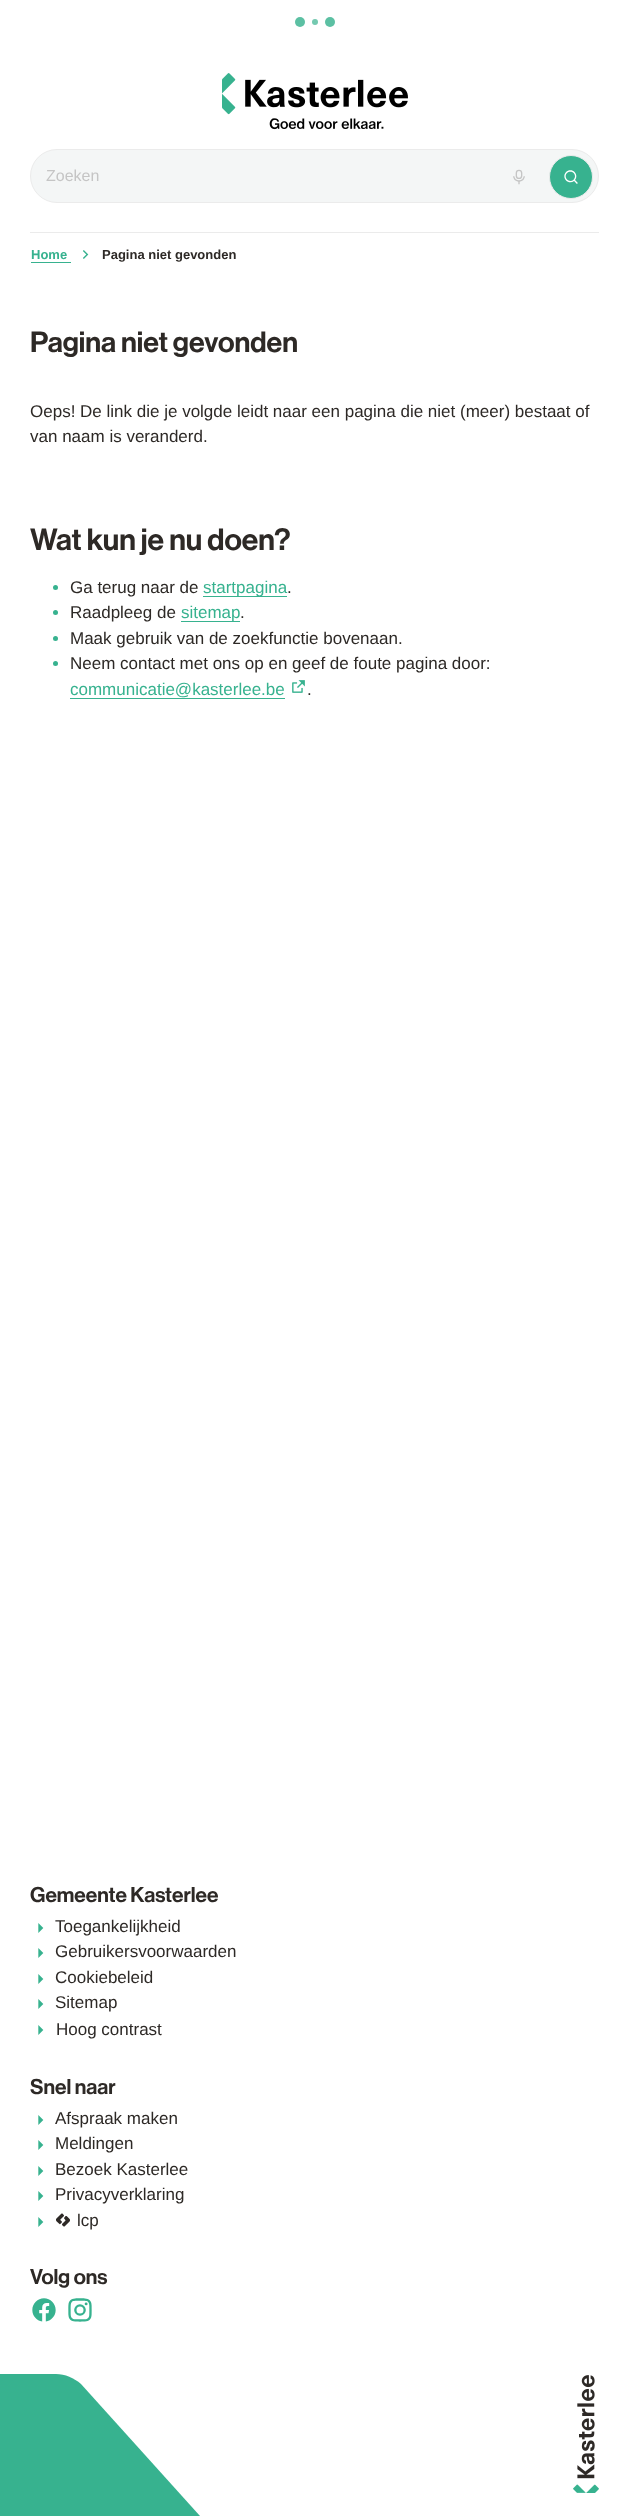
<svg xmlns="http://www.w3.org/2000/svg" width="629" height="2516">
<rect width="100%" height="100%" fill="#fff"/>
<circle cx="300" cy="22" r="5" fill="#5cc0a3"/>
<circle cx="315" cy="22" r="3" fill="#74c9b0"/>
<circle cx="330" cy="22" r="5" fill="#5cc0a3"/>
<image x="222" y="73" width="186" height="57" href="media/1.png"/>
<rect x="30.5" y="149.5" width="568" height="53" rx="26.5" fill="#f4f6f6" stroke="#ebebeb"/>
<text x="46" y="181" style="font-family:Liberation Sans;font-size:16px;fill:#c5c5c5">Zoeken</text>
<image x="513" y="169" width="12" height="16" href="media/2.png"/>
<circle cx="571" cy="177" r="21.5" fill="#37b28f" stroke="#ebebeb"/>
<image x="564" y="170" width="14" height="14" href="media/3.png"/>
<rect x="30" y="232" width="569" height="1" fill="#ebebeb"/>
<text x="31" y="259" style="font-family:Liberation Sans;font-size:13px;font-weight:bold;fill:#37b28f">Home</text>
<rect x="31" y="262" width="40" height="1" fill="#37b28f"/>
<image x="83" y="250" width="6" height="9" href="media/4.png"/>
<text x="102" y="259" style="font-family:Liberation Sans;font-size:13px;font-weight:bold;fill:#2d2926">Pagina niet gevonden</text>
<text x="30" y="352" style="font-family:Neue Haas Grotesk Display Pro;font-size:28.75px;font-weight:500;fill:#2d2926">Pagina niet gevonden</text>
<text x="30" y="417" style="font-family:Liberation Sans;font-size:17px;fill:#2d2926">Oeps! De link die je volgde leidt naar een pagina die niet (meer) bestaat of</text>
<text x="30" y="442" style="font-family:Liberation Sans;font-size:17px;fill:#2d2926">van naam is veranderd.</text>
<text x="30" y="550" style="font-family:Neue Haas Grotesk Display Pro;font-size:30.25px;font-weight:500;fill:#2d2926">Wat kun je nu doen?</text>
<circle cx="55.5" cy="587.5" r="2.5" fill="#37b28f"/>
<text x="70" y="593" style="font-family:Liberation Sans;font-size:17px;fill:#2d2926">Ga terug naar de</text>
<rect x="203" y="596" width="84" height="1" fill="#37b28f"/>
<text x="203" y="593" style="font-family:Liberation Sans;font-size:17px;fill:#37b28f">startpagina</text>
<text x="287" y="593" style="font-family:Liberation Sans;font-size:17px;fill:#2d2926">.</text>
<circle cx="55.5" cy="612.5" r="2.5" fill="#37b28f"/>
<text x="70" y="618" style="font-family:Liberation Sans;font-size:17px;fill:#2d2926">Raadpleeg de</text>
<rect x="181" y="621" width="59" height="1" fill="#37b28f"/>
<text x="181" y="618" style="font-family:Liberation Sans;font-size:17px;fill:#37b28f">sitemap</text>
<text x="240" y="618" style="font-family:Liberation Sans;font-size:17px;fill:#2d2926">.</text>
<circle cx="55.5" cy="638.5" r="2.5" fill="#37b28f"/>
<text x="70" y="644" style="font-family:Liberation Sans;font-size:17px;fill:#2d2926">Maak gebruik van de zoekfunctie bovenaan.</text>
<circle cx="55.5" cy="663.5" r="2.5" fill="#37b28f"/>
<text x="70" y="669" style="font-family:Liberation Sans;font-size:17px;fill:#2d2926">Neem contact met ons op en geef de foute pagina door:</text>
<text x="70" y="695" style="font-family:Liberation Sans;font-size:17px;fill:#37b28f">communicatie@kasterlee.be</text>
<rect x="70" y="698" width="215" height="1" fill="#37b28f"/>
<image x="292" y="680" width="13" height="13" href="media/5.png"/>
<text x="307" y="695" style="font-family:Liberation Sans;font-size:17px;fill:#2d2926">.</text>
<text x="30" y="1902" style="font-family:Neue Haas Grotesk Display Pro;font-size:21px;font-weight:500;fill:#2d2926">Gemeente Kasterlee</text>
<image x="38" y="1923" width="6" height="10" href="media/6.png"/>
<text x="55" y="1932" style="font-family:Liberation Sans;font-size:17px;fill:#2d2926">Toegankelijkheid</text>
<image x="38" y="1948" width="6" height="10" href="media/6.png"/>
<text x="55" y="1957" style="font-family:Liberation Sans;font-size:17px;fill:#2d2926">Gebruikersvoorwaarden</text>
<image x="38" y="1974" width="6" height="10" href="media/6.png"/>
<text x="55" y="1983" style="font-family:Liberation Sans;font-size:17px;fill:#2d2926">Cookiebeleid</text>
<image x="38" y="1999" width="6" height="10" href="media/6.png"/>
<text x="55" y="2008" style="font-family:Liberation Sans;font-size:17px;fill:#2d2926">Sitemap</text>
<image x="38" y="2025" width="6" height="10" href="media/7.png"/>
<text x="56" y="2035" style="font-family:Liberation Sans;font-size:17px;fill:#2d2926">Hoog contrast</text>
<text x="30" y="2094" style="font-family:Neue Haas Grotesk Display Pro;font-size:21px;font-weight:500;fill:#2d2926">Snel naar</text>
<image x="38" y="2115" width="6" height="10" href="media/6.png"/>
<text x="55" y="2124" style="font-family:Liberation Sans;font-size:17px;fill:#2d2926">Afspraak maken</text>
<image x="38" y="2140" width="6" height="10" href="media/6.png"/>
<text x="55" y="2149" style="font-family:Liberation Sans;font-size:17px;fill:#2d2926">Meldingen</text>
<image x="38" y="2166" width="6" height="10" href="media/6.png"/>
<text x="55" y="2175" style="font-family:Liberation Sans;font-size:17px;fill:#2d2926">Bezoek Kasterlee</text>
<image x="38" y="2191" width="6" height="10" href="media/6.png"/>
<text x="55" y="2200" style="font-family:Liberation Sans;font-size:17px;fill:#2d2926">Privacyverklaring</text>
<image x="38" y="2217" width="6" height="10" href="media/6.png"/>
<image x="56" y="2213" width="14" height="14" href="media/8.png"/>
<text x="77" y="2226" style="font-family:Liberation Sans;font-size:17px;fill:#2d2926">lcp</text>
<text x="30" y="2284" style="font-family:Neue Haas Grotesk Display Pro;font-size:21px;font-weight:500;fill:#2d2926">Volg ons</text>
<image x="32" y="2298" width="24" height="24" href="media/9.png"/>
<image x="68" y="2298" width="24" height="24" href="media/10.png"/>
<path d="M0 2516h200l-119-132c-7-6-16-10-25-10h-56z" fill="#37b28f"/>
<image x="573" y="2375" width="26" height="118" href="media/11.png"/>
</svg>
